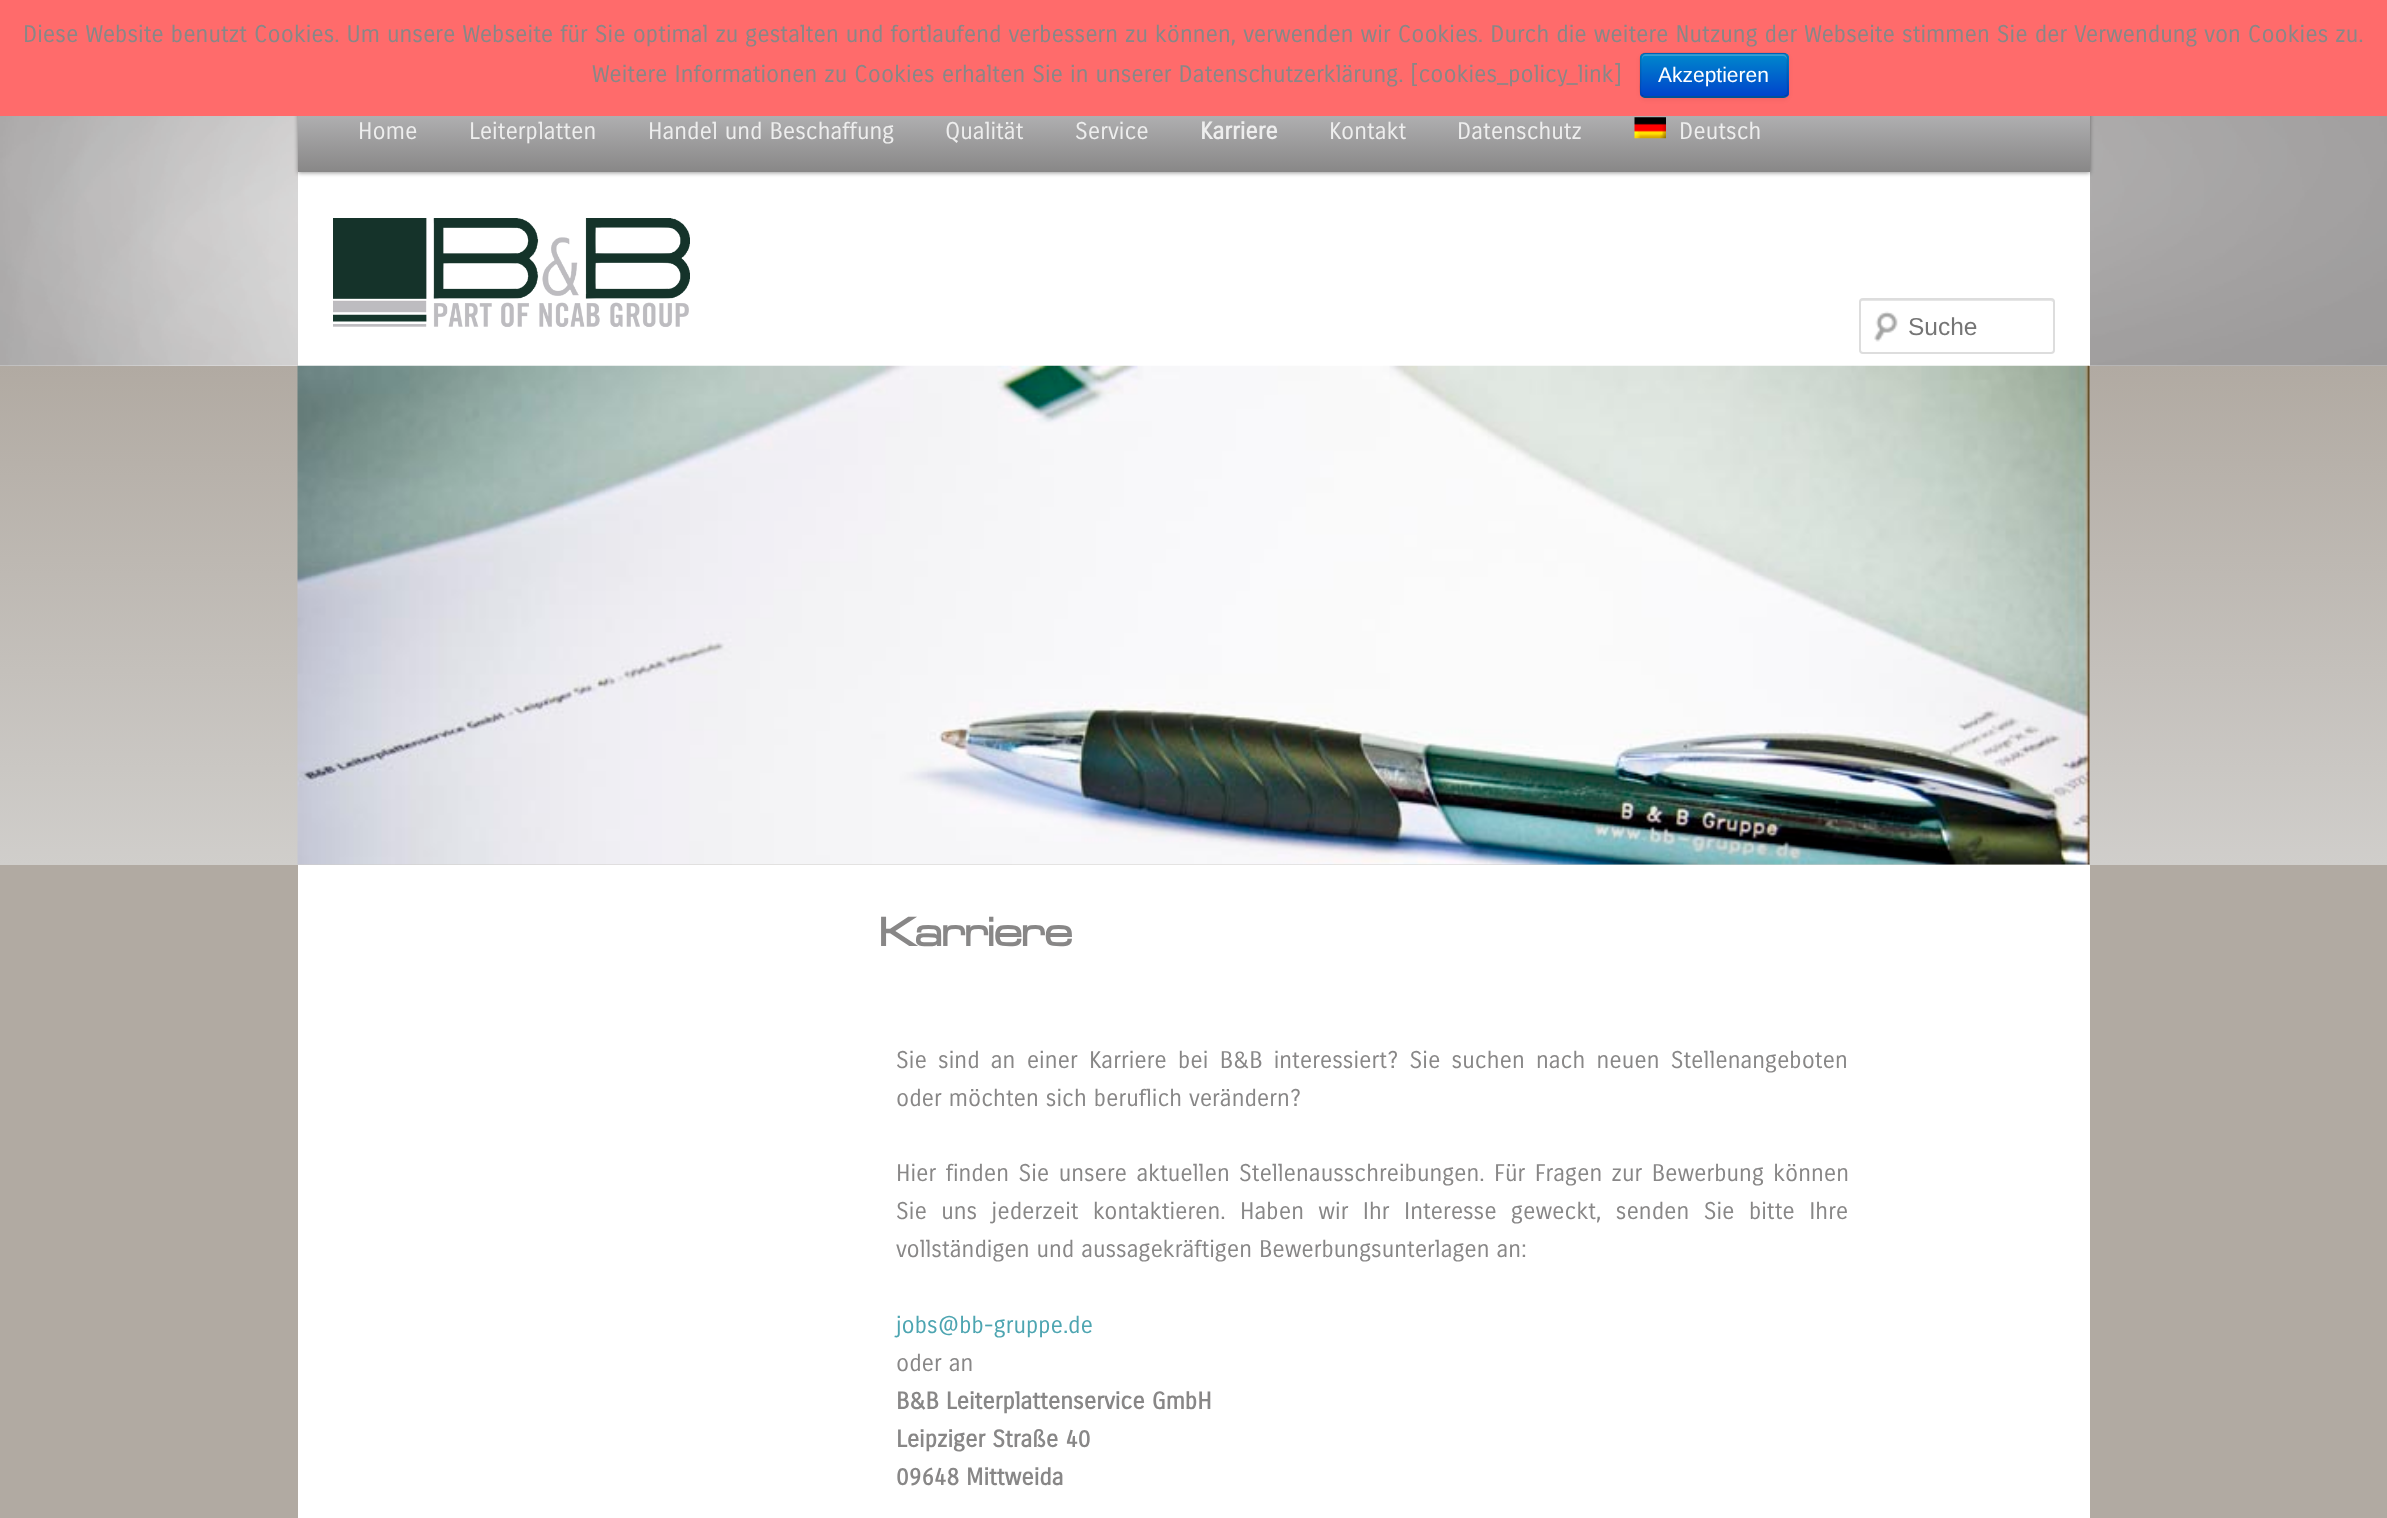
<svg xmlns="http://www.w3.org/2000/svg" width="2387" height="1518">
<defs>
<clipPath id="clip1"><rect x="1640" y="53" width="149" height="45" rx="5"/></clipPath>
<linearGradient id="g1" gradientUnits="userSpaceOnUse" x1="1714" y1="54" x2="1714" y2="96"><stop offset="0" stop-color="#08c"/><stop offset="1" stop-color="#04c"/></linearGradient>
<linearGradient id="g2" gradientUnits="userSpaceOnUse" x1="1194" y1="93" x2="1194" y2="172"><stop offset="0" stop-color="#bfbfc1"/><stop offset="1" stop-color="#888787"/></linearGradient>
<linearGradient id="g3" gradientUnits="userSpaceOnUse" x1="1194" y1="366" x2="1194" y2="865"><stop offset="0" stop-color="#b1aaa2"/><stop offset="1" stop-color="#d0cecb"/></linearGradient>
</defs>
<rect width="100%" height="100%" fill="#fff"/>
<image x="0" y="116" width="2387" height="250" href="media/1.png"/>
<rect x="298" y="172" width="1792" height="194" fill="#fff"/>
<rect x="298" y="95" width="1792" height="78" fill="#00000066" filter="blur(2px)"/>
<rect width="2387" height="116" fill="#ff6b6b"/>
<text x="23" y="42" style="font-family:Carrois Gothic;font-size:23.33px;fill:#888787">Diese Website benutzt Cookies. Um unsere Webseite für Sie optimal zu gestalten und fortlaufend verbessern zu können, verwenden wir Cookies. Durch die weitere Nutzung der Webseite stimmen Sie der Verwendung von Cookies zu.</text>
<text x="592" y="82" style="font-family:Carrois Gothic;font-size:23.33px;fill:#888787">Weitere Informationen zu Cookies erhalten Sie in unserer Datenschutzerklärung. [cookies_policy_link]</text>
<rect x="1640" y="54" width="149" height="46" rx="5" fill="#0000000d" filter="blur(2px)"/>
<rect x="1640" y="53" width="149" height="45" rx="5" fill="#006dcc"/>
<g clip-path="url(#clip1)">
<rect x="1640" y="54" width="149" height="42" fill="url(#g1)"/>
</g>
<path d="M1645 56h138c2 0 4 2 4 4v-2c0-2-2-4-4-4h-137c-2 0-4 2-4 4v2c0-2 1-4 3-4z" fill="#ffffff33"/>
<path d="M1786.5 96l-3.5 1h-138.5l-2.5-1" fill="none" stroke="#00000040" stroke-width="1.8"/>
<path d="M1642 96c-3-3-1.5-12-1.5-15v-17.5c0-3.5-1-10 4.5-10h138c5.5 0 4.5 6.5 4.5 10v17.5c0 3 1.5 12-1 15" fill="none" stroke="#0000001a" stroke-width="1.8"/>
<text x="1658" y="82" style="font-family:Liberation Sans;font-size:21px;fill:#fff">Akzeptieren</text>
<rect x="298" y="116" width="1792" height="56" fill="url(#g2)"/>
<text x="358" y="139" style="font-family:Carrois Gothic;font-size:23.33px;fill:#eee">Home</text>
<text x="469" y="139" style="font-family:Carrois Gothic;font-size:23.33px;fill:#eee">Leiterplatten</text>
<text x="648" y="139" style="font-family:Carrois Gothic;font-size:23.33px;fill:#eee">Handel und Beschaffung</text>
<text x="945" y="139" style="font-family:Carrois Gothic;font-size:23.33px;fill:#eee">Qualität</text>
<text x="1075" y="139" style="font-family:Carrois Gothic;font-size:23.33px;fill:#eee">Service</text>
<text x="1200" y="139" style="font-family:Carrois Gothic;font-size:23.33px;font-weight:bold;fill:#eee">Karriere</text>
<text x="1329" y="139" style="font-family:Carrois Gothic;font-size:23.33px;fill:#eee">Kontakt</text>
<text x="1457" y="139" style="font-family:Carrois Gothic;font-size:23.33px;fill:#eee">Datenschutz</text>
<image x="1634" y="117" width="32" height="22" href="media/2.png"/>
<text x="1679" y="139" style="font-family:Carrois Gothic;font-size:23.33px;fill:#eee">Deutsch</text>
<image x="333" y="218" width="357" height="109" href="media/3.png"/>
<image x="1874" y="311" width="24" height="31" href="media/4.png"/>
<path d="M1862 301h189l2 1v1c0-2 0-4-2-4h-189c-2 0-2 2-2 4c0-1 1-2 2-2z" fill="#e6e6e6"/>
<rect x="1860" y="299" width="194" height="54" rx="3" fill="none" stroke="#ddd" stroke-width="2"/>
<text x="1908" y="335" style="font-family:Liberation Sans;font-size:24.5px;fill:#757575">Suche</text>
<rect y="366" width="2387" height="499" fill="url(#g3)"/>
<image x="297" y="365" width="1793" height="500" href="media/5.png"/>
<rect y="865" width="2387" height="653" fill="#b1aaa2"/>
<rect x="298" y="865" width="1792" height="653" fill="#fff"/>
<text x="879" y="946" style="font-family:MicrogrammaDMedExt;font-size:42px;font-weight:bold;fill:#888787">Karriere</text>
<text x="896" y="1068" word-spacing="4.25" style="font-family:Carrois Gothic;font-size:23.33px;fill:#888787">Sie sind an einer Karriere bei B&amp;B interessiert? Sie suchen nach neuen Stellenangeboten</text>
<text x="896" y="1106" style="font-family:Carrois Gothic;font-size:23.33px;fill:#888787">oder möchten sich beruflich verändern?</text>
<text x="896" y="1181" word-spacing="2.4" style="font-family:Carrois Gothic;font-size:23.33px;fill:#888787">Hier finden Sie unsere aktuellen Stellenausschreibungen. Für Fragen zur Bewerbung können</text>
<text x="896" y="1219" word-spacing="7.4" style="font-family:Carrois Gothic;font-size:23.33px;fill:#888787">Sie uns jederzeit kontaktieren. Haben wir Ihr Interesse geweckt, senden Sie bitte Ihre</text>
<text x="896" y="1257" style="font-family:Carrois Gothic;font-size:23.33px;fill:#888787">vollständigen und aussagekräftigen Bewerbungsunterlagen an:</text>
<text x="896" y="1333" style="font-family:Carrois Gothic;font-size:23.33px;fill:#4da5b1">jobs@bb-gruppe.de</text>
<text x="896" y="1371" style="font-family:Carrois Gothic;font-size:23.33px;fill:#888787">oder an</text>
<text x="896" y="1409" style="font-family:Carrois Gothic;font-size:23.33px;font-weight:bold;fill:#888787">B&amp;B Leiterplattenservice GmbH</text>
<text x="896" y="1447" style="font-family:Carrois Gothic;font-size:23.33px;font-weight:bold;fill:#888787">Leipziger Straße 40</text>
<text x="896" y="1485" style="font-family:Carrois Gothic;font-size:23.33px;font-weight:bold;fill:#888787">09648 Mittweida</text>
</svg>
